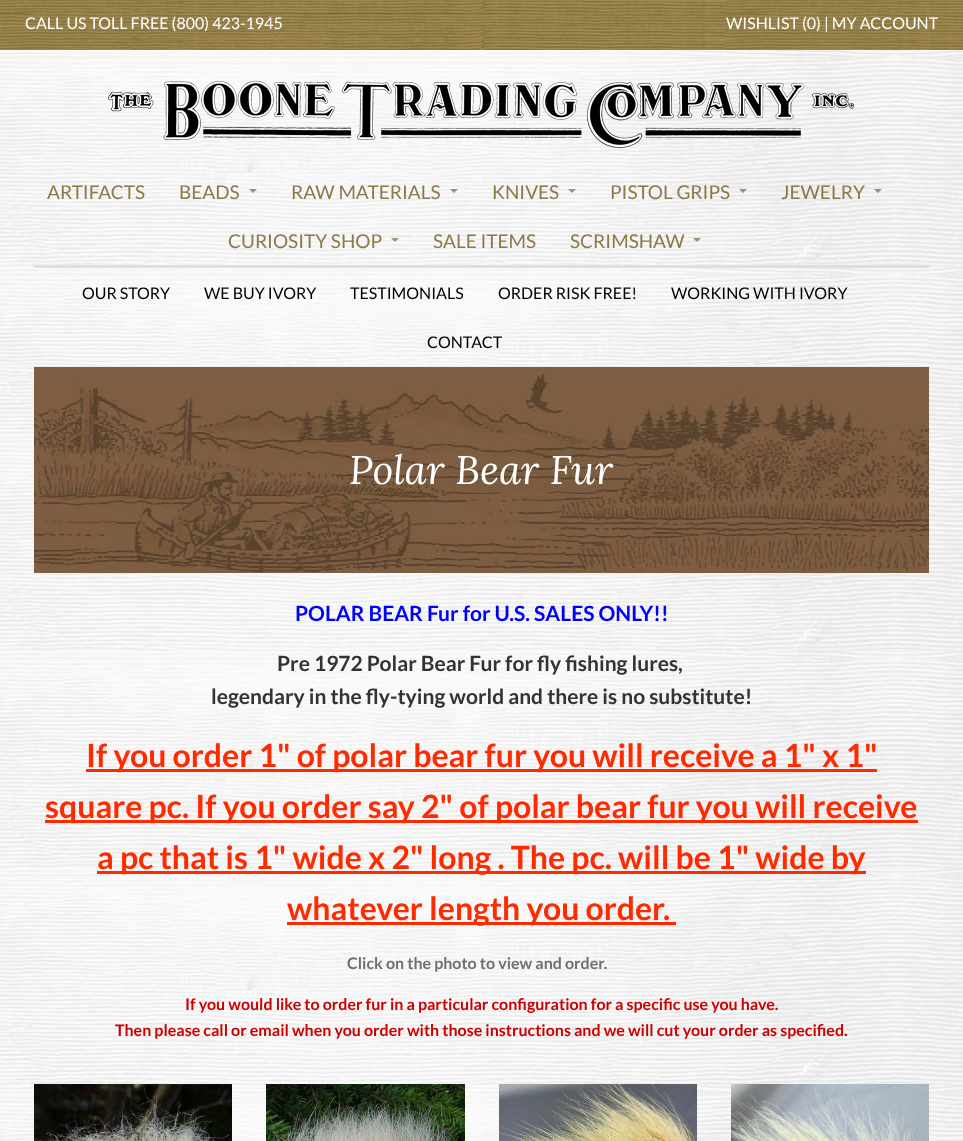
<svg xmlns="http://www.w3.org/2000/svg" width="963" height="1141">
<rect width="100%" height="100%" fill="#fff"/>
<image x="0" y="367" width="963" height="774" href="media/1.png"/>
<image x="0" y="0" width="963" height="50" href="media/2.png"/>
<text x="25" y="29" style="font-family:Lato;font-size:16px;fill:#fff">CALL US TOLL FREE (800) 423-1945</text>
<text x="726" y="29" style="font-family:Lato;font-size:16px;fill:#fff">WISHLIST (0) | MY ACCOUNT</text>
<image x="0" y="50" width="963" height="317" href="media/3.png"/>
<rect x="34" y="366" width="895" height="1" fill="#eee"/>
<image x="108" y="80" width="747" height="69" href="media/4.png"/>
<rect x="34" y="265" width="895" height="3" fill="#dfdfdf"/>
<text x="47" y="199" style="font-family:Lato;font-size:19px;fill:#8c7848">ARTIFACTS</text>
<text x="179" y="199" style="font-family:Lato;font-size:19px;fill:#8c7848">BEADS</text>
<path d="M253 193l-4-4h8z" fill="#8c7848cc"/>
<text x="291" y="199" style="font-family:Lato;font-size:19px;fill:#8c7848">RAW MATERIALS</text>
<path d="M454 193l-4-4h8z" fill="#8c7848cc"/>
<text x="492" y="199" style="font-family:Lato;font-size:19px;fill:#8c7848">KNIVES</text>
<path d="M572 193l-4-4h8z" fill="#8c7848cc"/>
<text x="610" y="199" style="font-family:Lato;font-size:19px;fill:#8c7848">PISTOL GRIPS</text>
<path d="M743 193l-4-4h8z" fill="#8c7848cc"/>
<text x="781" y="199" style="font-family:Lato;font-size:19px;fill:#8c7848">JEWELRY</text>
<path d="M878 193l-4-4h8z" fill="#8c7848cc"/>
<text x="228" y="248" style="font-family:Lato;font-size:19px;fill:#8c7848">CURIOSITY SHOP</text>
<path d="M395 242l-4-4h8z" fill="#8c7848cc"/>
<text x="433" y="248" style="font-family:Lato;font-size:19px;fill:#8c7848">SALE ITEMS</text>
<text x="570" y="248" style="font-family:Lato;font-size:19px;fill:#8c7848">SCRIMSHAW</text>
<path d="M697 242l-4-4h8z" fill="#8c7848cc"/>
<text x="82" y="299" style="font-family:Lato;font-size:16px;fill:#000">OUR STORY</text>
<text x="204" y="299" style="font-family:Lato;font-size:16px;fill:#000">WE BUY IVORY</text>
<text x="350" y="299" style="font-family:Lato;font-size:16px;fill:#000">TESTIMONIALS</text>
<text x="498" y="299" style="font-family:Lato;font-size:16px;fill:#000">ORDER RISK FREE!</text>
<text x="671" y="299" style="font-family:Lato;font-size:16px;fill:#000">WORKING WITH IVORY</text>
<text x="427" y="348" style="font-family:Lato;font-size:16px;fill:#000">CONTACT</text>
<image x="34" y="367" width="895" height="206" href="media/5.png"/>
<text x="349" y="484" style="font-family:Lora;font-size:40px;font-style:italic;fill:#fff">Polar Bear Fur</text>
<text x="295" y="621" style="font-family:Lato;font-size:21px;font-weight:bold;fill:#00f">POLAR BEAR Fur for U.S. SALES ONLY!!</text>
<text x="277" y="671" style="font-family:Lato;font-size:21px;font-weight:bold;fill:#333">Pre 1972 Polar Bear Fur for fly fishing lures,</text>
<text x="211" y="704" style="font-family:Lato;font-size:21px;font-weight:bold;fill:#333">legendary in the fly-tying world and there is no substitute!</text>
<rect x="86" y="769" width="791" height="3" fill="#ff2a00"/>
<text x="86" y="767" style="font-family:Lato;font-size:32px;font-weight:bold;fill:#ff2a00">If you order 1" of polar bear fur you will receive a 1" x 1"</text>
<rect x="45" y="820" width="873" height="3" fill="#ff2a00"/>
<text x="45" y="818" style="font-family:Lato;font-size:32px;font-weight:bold;fill:#ff2a00">square pc. If you order say 2" of polar bear fur you will receive</text>
<rect x="97" y="871" width="769" height="3" fill="#ff2a00"/>
<text x="97" y="869" style="font-family:Lato;font-size:32px;font-weight:bold;fill:#ff2a00">a pc that is 1" wide x 2" long . The pc. will be 1" wide by</text>
<rect x="287" y="922" width="389" height="3" fill="#ff2a00"/>
<text x="287" y="920" style="font-family:Lato;font-size:32px;font-weight:bold;fill:#ff2a00">whatever length you order.</text>
<text x="347" y="969" style="font-family:Lato;font-size:16px;font-weight:bold;fill:#707070">Click on the photo to view and order.</text>
<text x="185" y="1010" style="font-family:Lato;font-size:16px;font-weight:bold;fill:#c00">If you would like to order fur in a particular configuration for a specific use you have.</text>
<text x="115" y="1036" style="font-family:Lato;font-size:16px;font-weight:bold;fill:#c00">Then please call or email when you order with those instructions and we will cut your order as specified.</text>
<image x="34" y="1084" width="198" height="57" href="media/6.png"/>
<image x="266" y="1084" width="199" height="57" href="media/7.png"/>
<image x="499" y="1084" width="198" height="57" href="media/8.png"/>
<image x="731" y="1084" width="198" height="57" href="media/9.png"/>
</svg>
